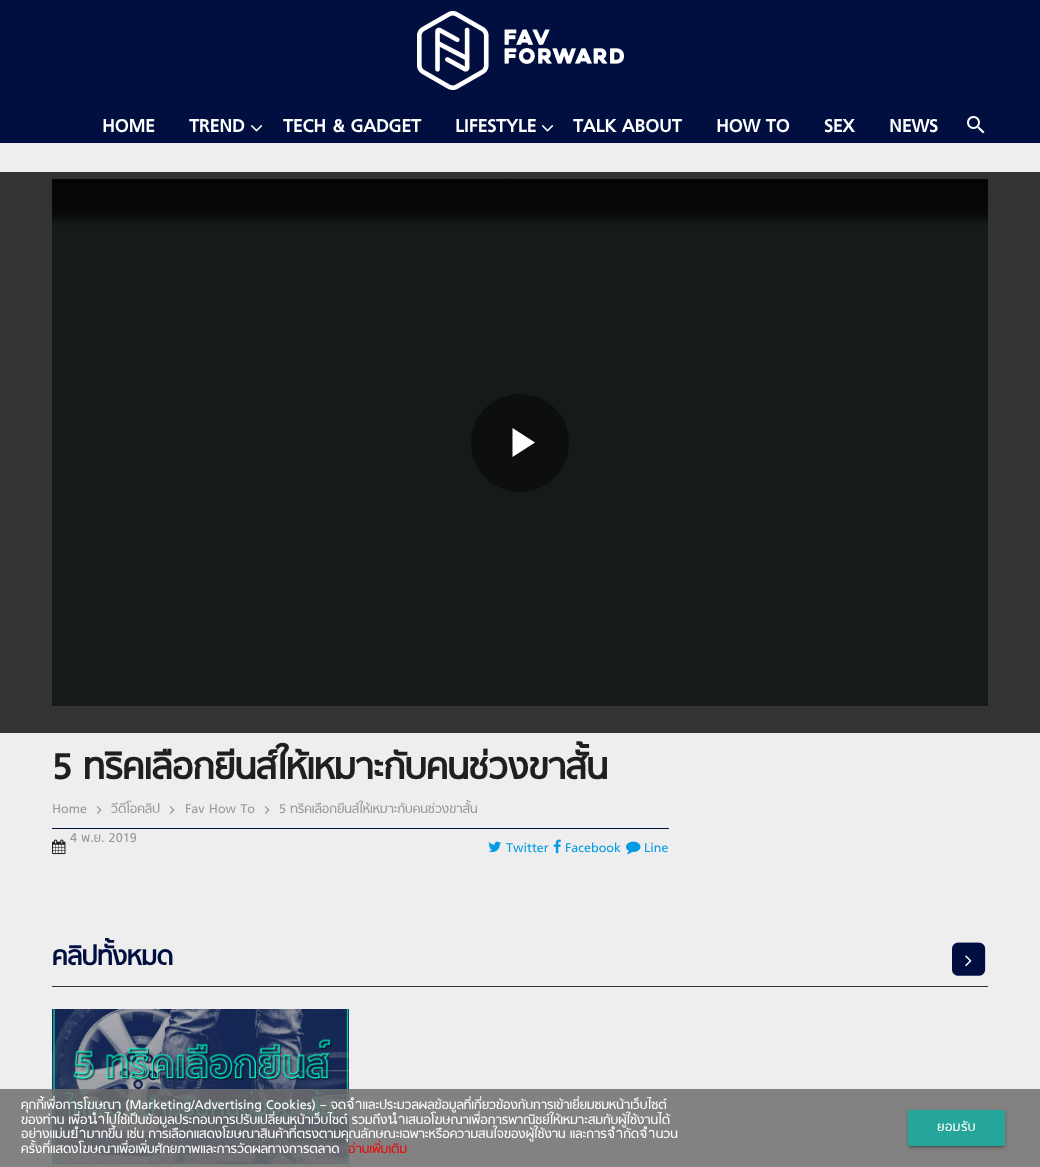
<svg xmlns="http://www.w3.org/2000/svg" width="1040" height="1167">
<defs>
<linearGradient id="g1" gradientUnits="userSpaceOnUse" x1="520" y1="179" x2="520" y2="226"><stop offset="0" stop-color="#040505"/><stop offset="0.3" stop-color="#060807"/><stop offset="0.7" stop-color="#060807"/><stop offset="1" stop-color="#151b17"/></linearGradient>
</defs>
<rect width="100%" height="100%" fill="#eee"/>
<rect width="1040" height="143" fill="#000f3f"/>
<image x="417" y="11" width="207" height="79" href="media/1.png"/>
<text x="102" y="132" style="font-family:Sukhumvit;font-size:20.25px;font-weight:bold;fill:#fff">HOME</text>
<text x="189" y="132" style="font-family:Sukhumvit;font-size:20.25px;font-weight:bold;fill:#fff">TREND</text>
<image x="250" y="125" width="13" height="7" href="media/2.png"/>
<text x="283" y="132" style="font-family:Sukhumvit;font-size:20.25px;font-weight:bold;fill:#fff">TECH &amp; GADGET</text>
<text x="455" y="132" style="font-family:Sukhumvit;font-size:20.25px;font-weight:bold;fill:#fff">LIFESTYLE</text>
<image x="541" y="125" width="13" height="7" href="media/2.png"/>
<text x="573" y="132" style="font-family:Sukhumvit;font-size:20.25px;font-weight:bold;fill:#fff">TALK ABOUT</text>
<text x="716" y="132" style="font-family:Sukhumvit;font-size:20.25px;font-weight:bold;fill:#fff">HOW TO</text>
<text x="824" y="132" style="font-family:Sukhumvit;font-size:20.25px;font-weight:bold;fill:#fff">SEX</text>
<text x="889" y="132" style="font-family:Sukhumvit;font-size:20.25px;font-weight:bold;fill:#fff">NEWS</text>
<image x="967" y="116" width="18" height="18" href="media/3.png"/>
<rect y="172" width="1040" height="561" fill="#333"/>
<rect x="52" y="226" width="936" height="480" fill="#151b17"/>
<rect x="52" y="179" width="936" height="47" fill="url(#g1)"/>
<circle cx="520" cy="443" r="49" fill="#0c0f0d"/>
<path d="M512.5 428v29l22.5-14.5z" fill="#fff"/>
<text x="52" y="779" style="font-family:Sukhumvit;font-size:40.6px;font-weight:bold;fill:#1f1f1f">5 ทริคเลือกยีนส์ให้เหมาะกับคนช่วงขาสั้น</text>
<rect x="52" y="828" width="617" height="1" fill="#000f3f"/>
<text x="52" y="813" style="font-family:Sukhumvit;font-size:14.5px;fill:#999">Home</text>
<image x="96" y="806" width="6" height="8" href="media/4.png"/>
<text x="111" y="813" style="font-family:Sukhumvit;font-size:14.5px;fill:#999">วีดีโอคลิป</text>
<image x="169" y="806" width="6" height="8" href="media/4.png"/>
<text x="185" y="813" style="font-family:Sukhumvit;font-size:14.5px;fill:#999">Fav How To</text>
<image x="264" y="806" width="6" height="8" href="media/4.png"/>
<text x="279" y="813" style="font-family:Sukhumvit;font-size:14.5px;fill:#999">5 ทริคเลือกยีนส์ให้เหมาะกับคนช่วงขาสั้น</text>
<text x="70" y="842" style="font-family:Sukhumvit;font-size:14.5px;fill:#999">4 พ.ย. 2019</text>
<image x="52" y="839" width="14" height="16" href="media/5.png"/>
<image x="488" y="841" width="13" height="11" href="media/6.png"/>
<text x="506" y="852" style="font-family:Sukhumvit;font-size:14.5px;fill:#039be5">Twitter</text>
<image x="553" y="839" width="8" height="15" href="media/7.png"/>
<text x="565" y="852" style="font-family:Sukhumvit;font-size:14.5px;fill:#039be5">Facebook</text>
<image x="626" y="841" width="15" height="14" href="media/8.png"/>
<text x="644" y="852" style="font-family:Sukhumvit;font-size:14.5px;fill:#039be5">Line</text>
<rect x="52" y="986" width="936" height="1" fill="#333"/>
<text x="52" y="965" style="font-family:Sukhumvit;font-size:29px;font-weight:bold;fill:#000f3f">คลิปทั้งหมด</text>
<image x="952" y="942" width="34" height="34" href="media/9.png"/>
<image x="965" y="955" width="7" height="12" href="media/10.png"/>
<image x="52" y="1009" width="297" height="155" href="media/11.png"/>
<rect x="52.5" y="1164.5" width="296" height="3" fill="none" stroke="#ccc"/>
<rect y="1089" width="1040" height="78" fill="#6f6f6fd9"/>
<text x="21" y="1109" style="font-family:Sukhumvit;font-size:14.5px;fill:#fff">คุกกี้เพื่อการโฆษณา (Marketing/Advertising Cookies) – จดจำและประมวลผลข้อมูลที่เกี่ยวข้องกับการเข้าเยี่ยมชมหน้าเว็บไซต์</text>
<text x="21" y="1124" style="font-family:Sukhumvit;font-size:14.5px;fill:#fff">ของท่าน เพื่อนำไปใช้เป็นข้อมูลประกอบการปรับเปลี่ยนหน้าเว็บไซต์ รวมถึงนำเสนอโฆษณาเพื่อการพาณิชย์ให้เหมาะสมกับผู้ใช้งานได้</text>
<text x="21" y="1138" style="font-family:Sukhumvit;font-size:14.5px;fill:#fff">อย่างแม่นยำมากขึ้น เช่น การเลือกแสดงโฆษณาสินค้าที่ตรงตามคุณลักษณะเฉพาะหรือความสนใจของผู้ใช้งาน และการจำกัดจำนวน</text>
<text x="21" y="1153" style="font-family:Sukhumvit;font-size:14.5px;fill:#fff">ครั้งที่แสดงโฆษณาเพื่อเพิ่มศักยภาพและการวัดผลทางการตลาด</text>
<text x="348" y="1153" style="font-family:Sukhumvit;font-size:14.5px;fill:#ea0909">อ่านเพิ่มเติม</text>
<rect x="910" y="1115" width="93" height="32" fill="#00000033" filter="blur(0.5px)"/>
<rect x="908" y="1111" width="97" height="36" rx="2" fill="#0000001f" filter="blur(2.5px)"/>
<rect x="908" y="1112" width="97" height="36" rx="2" fill="#00000024" filter="blur(1px)"/>
<rect x="908" y="1110" width="97" height="36" rx="2" fill="#26a69a"/>
<text x="937" y="1131" style="font-family:Sukhumvit;font-size:14.5px;letter-spacing:0.5px;fill:#fff">ยอมรับ</text>
</svg>
